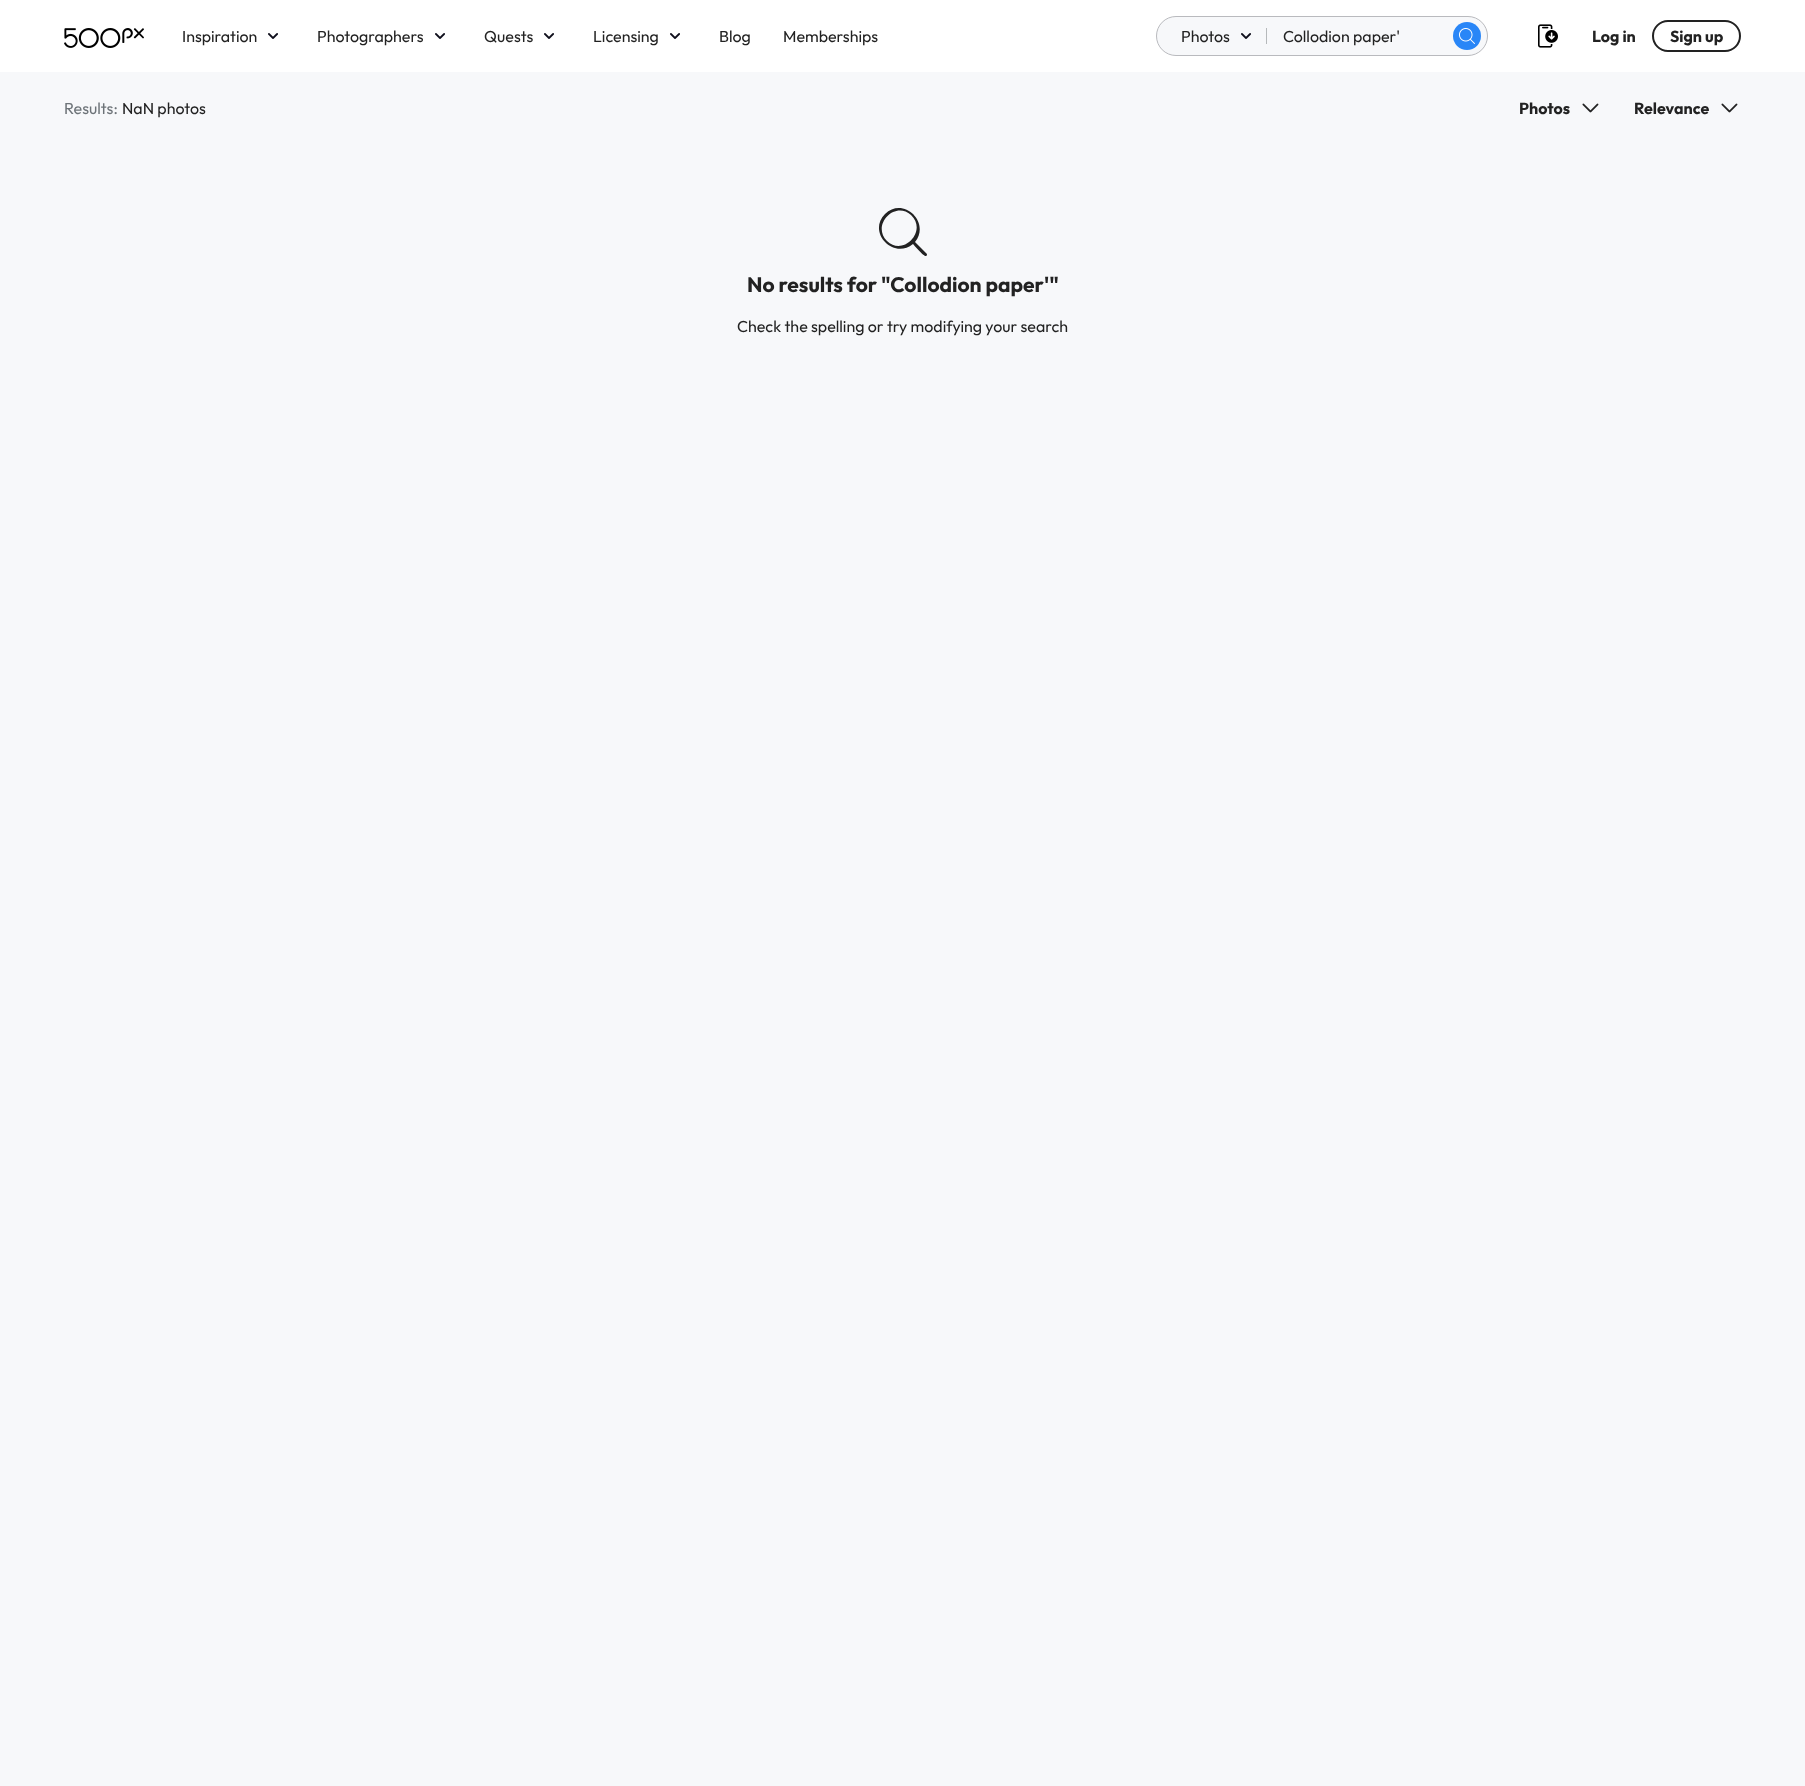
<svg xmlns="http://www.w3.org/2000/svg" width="1805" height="1786">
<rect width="100%" height="100%" fill="#f7f8fa"/>
<rect width="1805" height="72" fill="#fff"/>
<image x="64" y="28" width="80" height="20" href="media/1.png"/>
<text x="182" y="42" style="font-family:Outfit;font-size:16px;fill:#222">Inspiration</text>
<image x="268" y="33" width="10" height="6" href="media/2.png"/>
<text x="317" y="42" style="font-family:Outfit;font-size:16px;fill:#222">Photographers</text>
<image x="435" y="33" width="10" height="6" href="media/2.png"/>
<text x="484" y="42" style="font-family:Outfit;font-size:16px;fill:#222">Quests</text>
<image x="544" y="33" width="10" height="6" href="media/2.png"/>
<text x="593" y="42" style="font-family:Outfit;font-size:16px;fill:#222">Licensing</text>
<image x="670" y="33" width="10" height="6" href="media/2.png"/>
<text x="719" y="42" style="font-family:Outfit;font-size:16px;fill:#222">Blog</text>
<text x="783" y="42" style="font-family:Outfit;font-size:16px;fill:#222">Memberships</text>
<rect x="1156.5" y="16.5" width="331" height="39" rx="19.5" fill="#f7f8fa" stroke="#b9babe"/>
<text x="1181" y="42" style="font-family:Outfit;font-size:16px;fill:#222">Photos</text>
<image x="1241" y="33" width="10" height="6" href="media/3.png"/>
<rect x="1266" y="28" width="1" height="16" fill="#b6b9bb"/>
<text x="1283" y="42" style="font-family:Outfit;font-size:16px;fill:#222">Collodion paper'</text>
<circle cx="1467" cy="36" r="14" fill="#2986f7"/>
<image x="1459" y="28" width="16" height="16" href="media/4.png"/>
<image x="1538" y="24" width="20" height="24" href="media/5.png"/>
<text x="1592" y="42" style="font-family:Outfit;font-size:16px;font-weight:bold;fill:#222">Log in</text>
<rect x="1653" y="21" width="87" height="30" rx="15" fill="none" stroke="#222" stroke-width="2"/>
<text x="1670" y="42" style="font-family:Outfit;font-size:16px;font-weight:bold;fill:#222">Sign up</text>
<text x="64" y="114" style="font-family:Outfit;font-size:16px;fill:#6d7378">Results:</text>
<text x="122" y="114" style="font-family:Outfit;font-size:16px;fill:#222">NaN photos</text>
<path d="M927 254l-12-12c16-20-12-46-30-28c-18 18 8 46 28 30c1 1 11 13 13 12c1 0 1-2 1-2zm-40-13c-16-16 8-41 24-26c17 16-8 42-24 26z" fill="#222" fill-rule="evenodd"/>
<text x="747" y="292" style="font-family:Outfit;font-size:21px;font-weight:bold;fill:#222">No results for "Collodion paper'"</text>
<text x="737" y="332" style="font-family:Outfit;font-size:16px;fill:#222">Check the spelling or try modifying your search</text>
<text x="1519" y="114" style="font-family:Outfit;font-size:16px;font-weight:bold;fill:#222">Photos</text>
<image x="1582" y="103" width="17" height="10" href="media/6.png"/>
<text x="1634" y="114" style="font-family:Outfit;font-size:16px;font-weight:bold;fill:#222">Relevance</text>
<image x="1721" y="103" width="17" height="10" href="media/6.png"/>
</svg>
